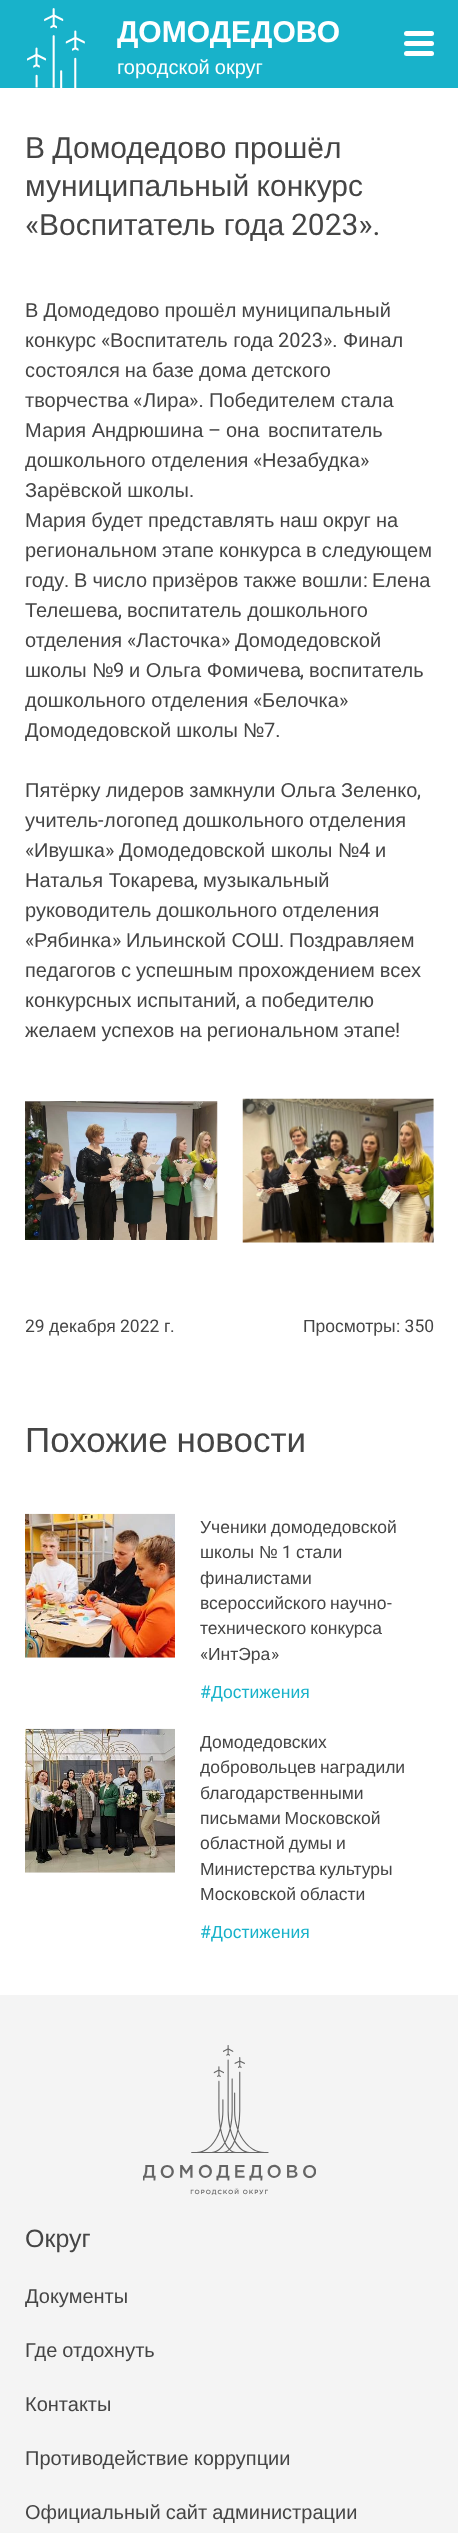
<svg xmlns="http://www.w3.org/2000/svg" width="458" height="2533">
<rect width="100%" height="100%" fill="#fff"/>
<rect width="458" height="88" fill="#18b2ca"/>
<image x="27" y="8" width="58" height="80" href="media/1.png"/>
<text x="117" y="42" style="font-family:Liberation Sans;font-size:30px;font-weight:bold;fill:#fff">ДОМОДЕДОВО</text>
<text x="117" y="74" word-spacing="-0.5" style="font-family:Liberation Sans;font-size:20px;fill:#fff">городской округ</text>
<rect x="404" y="41" width="30" height="5" rx="2.5" fill="#fff"/>
<rect x="404" y="31" width="30" height="5" rx="2.5" fill="#fff"/>
<rect x="404" y="51" width="30" height="5" rx="2.5" fill="#fff"/>
<text x="25" y="158" word-spacing="-1" style="font-family:Liberation Sans;font-size:30px;fill:#454545">В Домодедово прошёл</text>
<text x="25" y="196" word-spacing="-1" style="font-family:Liberation Sans;font-size:30px;fill:#454545">муниципальный конкурс</text>
<text x="25" y="235" style="font-family:Roboto;font-size:30px;fill:#454545">«</text>
<text x="39" y="235" style="font-family:Liberation Sans;font-size:30px;fill:#454545">Воспитатель года</text>
<text x="291" y="235" style="font-family:Roboto;font-size:30px;fill:#454545">2023».</text>
<text x="25" y="317" word-spacing="-0.5" style="font-family:Liberation Sans;font-size:20px;fill:#454545">В Домодедово прошёл муниципальный</text>
<text x="25" y="347" style="font-family:Liberation Sans;font-size:20px;fill:#454545">конкурс</text>
<text x="101" y="347" style="font-family:Roboto;font-size:20px;fill:#454545">«</text>
<text x="110" y="347" style="font-family:Liberation Sans;font-size:20px;fill:#454545">Воспитатель года</text>
<text x="278" y="347" style="font-family:Roboto;font-size:20px;fill:#454545">2023».</text>
<text x="343" y="347" style="font-family:Liberation Sans;font-size:20px;fill:#454545">Финал</text>
<text x="25" y="377" word-spacing="-0.5" style="font-family:Liberation Sans;font-size:20px;fill:#454545">состоялся на базе дома детского</text>
<text x="25" y="407" style="font-family:Liberation Sans;font-size:20px;fill:#454545">творчества</text>
<text x="133" y="407" style="font-family:Roboto;font-size:20px;fill:#454545">«</text>
<text x="143" y="407" style="font-family:Liberation Sans;font-size:20px;fill:#454545">Лира</text>
<text x="189" y="407" style="font-family:Roboto;font-size:20px;fill:#454545">».</text>
<text x="209" y="407" style="font-family:Liberation Sans;font-size:20px;fill:#454545">Победителем стала</text>
<text x="25" y="437" style="font-family:Liberation Sans;font-size:20px;fill:#454545">Мария Андрюшина</text>
<text x="208" y="437" style="font-family:Roboto;font-size:20px;fill:#454545">–</text>
<text x="226" y="437" style="font-family:Liberation Sans;font-size:20px;fill:#454545">она</text>
<text x="268" y="437" style="font-family:Liberation Sans;font-size:20px;fill:#454545">воспитатель</text>
<text x="25" y="467" style="font-family:Liberation Sans;font-size:20px;fill:#454545">дошкольного отделения</text>
<text x="253" y="467" style="font-family:Roboto;font-size:20px;fill:#454545">«</text>
<text x="262" y="467" style="font-family:Liberation Sans;font-size:20px;fill:#454545">Незабудка</text>
<text x="360" y="467" style="font-family:Roboto;font-size:20px;fill:#454545">»</text>
<text x="25" y="497" word-spacing="-0.5" style="font-family:Liberation Sans;font-size:20px;fill:#454545">Зарёвской школы</text>
<text x="189" y="497" style="font-family:Roboto;font-size:20px;fill:#454545">.</text>
<text x="25" y="527" word-spacing="-0.5" style="font-family:Liberation Sans;font-size:20px;fill:#454545">Мария будет представлять наш округ на</text>
<text x="25" y="557" word-spacing="-0.5" style="font-family:Liberation Sans;font-size:20px;fill:#454545">региональном этапе конкурса в следующем</text>
<text x="25" y="587" style="font-family:Liberation Sans;font-size:20px;fill:#454545">году</text>
<text x="64" y="587" style="font-family:Roboto;font-size:20px;fill:#454545">.</text>
<text x="74" y="587" word-spacing="-0.5" style="font-family:Liberation Sans;font-size:20px;fill:#454545">В число призёров также вошли</text>
<text x="363" y="587" style="font-family:Roboto;font-size:20px;fill:#454545">:</text>
<text x="372" y="587" style="font-family:Liberation Sans;font-size:20px;fill:#454545">Елена</text>
<text x="25" y="617" style="font-family:Liberation Sans;font-size:20px;fill:#454545">Телешева</text>
<text x="118" y="617" style="font-family:Roboto;font-size:20px;fill:#454545">,</text>
<text x="127" y="617" style="font-family:Liberation Sans;font-size:20px;fill:#454545">воспитатель дошкольного</text>
<text x="25" y="647" style="font-family:Liberation Sans;font-size:20px;fill:#454545">отделения</text>
<text x="127" y="647" style="font-family:Roboto;font-size:20px;fill:#454545">«</text>
<text x="136" y="647" style="font-family:Liberation Sans;font-size:20px;fill:#454545">Ласточка</text>
<text x="221" y="647" style="font-family:Roboto;font-size:20px;fill:#454545">»</text>
<text x="235" y="647" style="font-family:Liberation Sans;font-size:20px;fill:#454545">Домодедовской</text>
<text x="25" y="677" style="font-family:Liberation Sans;font-size:20px;fill:#454545">школы №</text>
<text x="113" y="677" style="font-family:Roboto;font-size:20px;fill:#454545">9</text>
<text x="129" y="677" style="font-family:Liberation Sans;font-size:20px;fill:#454545">и Ольга Фомичева</text>
<text x="300" y="677" style="font-family:Roboto;font-size:20px;fill:#454545">,</text>
<text x="309" y="677" style="font-family:Liberation Sans;font-size:20px;fill:#454545">воспитатель</text>
<text x="25" y="707" style="font-family:Liberation Sans;font-size:20px;fill:#454545">дошкольного отделения</text>
<text x="253" y="707" style="font-family:Roboto;font-size:20px;fill:#454545">«</text>
<text x="262" y="707" style="font-family:Liberation Sans;font-size:20px;fill:#454545">Белочка</text>
<text x="339" y="707" style="font-family:Roboto;font-size:20px;fill:#454545">»</text>
<text x="25" y="737" word-spacing="-0.5" style="font-family:Liberation Sans;font-size:20px;fill:#454545">Домодедовской школы №</text>
<text x="264" y="737" style="font-family:Roboto;font-size:20px;fill:#454545">7.</text>
<text x="25" y="797" word-spacing="-0.5" style="font-family:Liberation Sans;font-size:20px;fill:#454545">Пятёрку лидеров замкнули Ольга Зеленко</text>
<text x="417" y="797" style="font-family:Roboto;font-size:20px;fill:#454545">,</text>
<text x="25" y="827" style="font-family:Liberation Sans;font-size:20px;fill:#454545">учитель</text>
<text x="98" y="827" style="font-family:Roboto;font-size:20px;fill:#454545">-</text>
<text x="104" y="827" word-spacing="-0.5" style="font-family:Liberation Sans;font-size:20px;fill:#454545">логопед дошкольного отделения</text>
<text x="25" y="857" style="font-family:Roboto;font-size:20px;fill:#454545">«</text>
<text x="34" y="857" style="font-family:Liberation Sans;font-size:20px;fill:#454545">Ивушка</text>
<text x="105" y="857" style="font-family:Roboto;font-size:20px;fill:#454545">»</text>
<text x="119" y="857" style="font-family:Liberation Sans;font-size:20px;fill:#454545">Домодедовской школы №</text>
<text x="359" y="857" style="font-family:Roboto;font-size:20px;fill:#454545">4</text>
<text x="375" y="857" style="font-family:Liberation Sans;font-size:20px;fill:#454545">и</text>
<text x="25" y="887" style="font-family:Liberation Sans;font-size:20px;fill:#454545">Наталья Токарева</text>
<text x="194" y="887" style="font-family:Roboto;font-size:20px;fill:#454545">,</text>
<text x="203" y="887" style="font-family:Liberation Sans;font-size:20px;fill:#454545">музыкальный</text>
<text x="25" y="917" word-spacing="-0.5" style="font-family:Liberation Sans;font-size:20px;fill:#454545">руководитель дошкольного отделения</text>
<text x="25" y="947" style="font-family:Roboto;font-size:20px;fill:#454545">«</text>
<text x="34" y="947" style="font-family:Liberation Sans;font-size:20px;fill:#454545">Рябинка</text>
<text x="112" y="947" style="font-family:Roboto;font-size:20px;fill:#454545">»</text>
<text x="126" y="947" style="font-family:Liberation Sans;font-size:20px;fill:#454545">Ильинской СОШ</text>
<text x="279" y="947" style="font-family:Roboto;font-size:20px;fill:#454545">.</text>
<text x="289" y="947" style="font-family:Liberation Sans;font-size:20px;fill:#454545">Поздравляем</text>
<text x="25" y="977" word-spacing="-0.5" style="font-family:Liberation Sans;font-size:20px;fill:#454545">педагогов с успешным прохождением всех</text>
<text x="25" y="1007" word-spacing="-0.5" style="font-family:Liberation Sans;font-size:20px;fill:#454545">конкурсных испытаний</text>
<text x="236" y="1007" style="font-family:Roboto;font-size:20px;fill:#454545">,</text>
<text x="245" y="1007" word-spacing="-0.5" style="font-family:Liberation Sans;font-size:20px;fill:#454545">а победителю</text>
<text x="25" y="1037" word-spacing="-0.5" style="font-family:Liberation Sans;font-size:20px;fill:#454545">желаем успехов на региональном этапе</text>
<text x="395" y="1037" style="font-family:Roboto;font-size:20px;fill:#454545">!</text>
<image x="25" y="1101" width="193" height="139" href="media/2.png"/>
<image x="242" y="1098" width="192" height="145" href="media/3.png"/>
<text x="25" y="1332" style="font-family:Roboto;font-size:17.5px;fill:#454545">29</text>
<text x="49" y="1332" style="font-family:Liberation Sans;font-size:17.5px;fill:#454545">декабря</text>
<text x="120" y="1332" style="font-family:Roboto;font-size:17.5px;fill:#454545">2022</text>
<text x="164" y="1332" style="font-family:Liberation Sans;font-size:17.5px;fill:#454545">г</text>
<text x="170" y="1332" style="font-family:Roboto;font-size:17.5px;fill:#454545">.</text>
<text x="303" y="1332" style="font-family:Liberation Sans;font-size:17.5px;fill:#454545">Просмотры</text>
<text x="396" y="1332" style="font-family:Roboto;font-size:17.5px;fill:#454545">: 350</text>
<text x="25" y="1452" word-spacing="-1" style="font-family:Liberation Sans;font-size:35px;fill:#454545">Похожие новости</text>
<rect x="25" y="1657" width="150" height="1" fill="#f4f4f4"/>
<image x="25" y="1513" width="150" height="145" href="media/4.png"/>
<text x="200" y="1533" word-spacing="-1" style="font-family:Liberation Sans;font-size:17.5px;fill:#454545">Ученики домодедовской</text>
<text x="200" y="1558" style="font-family:Liberation Sans;font-size:17.5px;fill:#454545">школы №</text>
<text x="282" y="1558" style="font-family:Roboto;font-size:17.5px;fill:#454545">1</text>
<text x="296" y="1558" style="font-family:Liberation Sans;font-size:17.5px;fill:#454545">стали</text>
<text x="200" y="1584" style="font-family:Liberation Sans;font-size:17.5px;fill:#454545">финалистами</text>
<text x="200" y="1609" word-spacing="-1" style="font-family:Liberation Sans;font-size:17.5px;fill:#454545">всероссийского научно</text>
<text x="387" y="1609" style="font-family:Roboto;font-size:17.5px;fill:#454545">-</text>
<text x="200" y="1634" word-spacing="-1" style="font-family:Liberation Sans;font-size:17.5px;fill:#454545">технического конкурса</text>
<text x="200" y="1660" style="font-family:Roboto;font-size:17.5px;fill:#454545">«</text>
<text x="208" y="1660" style="font-family:Liberation Sans;font-size:17.5px;fill:#454545">ИнтЭра</text>
<text x="271" y="1660" style="font-family:Roboto;font-size:17.5px;fill:#454545">»</text>
<text x="200" y="1698" style="font-family:Roboto;font-size:17.5px;fill:#18b2ca">#</text>
<text x="211" y="1698" style="font-family:Liberation Sans;font-size:17.5px;fill:#18b2ca">Достижения</text>
<rect x="25" y="1872" width="150" height="1" fill="#f4f4f4"/>
<image x="25" y="1728" width="150" height="145" href="media/5.png"/>
<text x="200" y="1748" style="font-family:Liberation Sans;font-size:17.5px;fill:#454545">Домодедовских</text>
<text x="200" y="1773" word-spacing="-1" style="font-family:Liberation Sans;font-size:17.5px;fill:#454545">добровольцев наградили</text>
<text x="200" y="1799" style="font-family:Liberation Sans;font-size:17.5px;fill:#454545">благодарственными</text>
<text x="200" y="1824" word-spacing="-1" style="font-family:Liberation Sans;font-size:17.5px;fill:#454545">письмами Московской</text>
<text x="200" y="1849" word-spacing="-1" style="font-family:Liberation Sans;font-size:17.5px;fill:#454545">областной думы и</text>
<text x="200" y="1875" word-spacing="-1" style="font-family:Liberation Sans;font-size:17.5px;fill:#454545">Министерства культуры</text>
<text x="200" y="1900" word-spacing="-1" style="font-family:Liberation Sans;font-size:17.5px;fill:#454545">Московской области</text>
<text x="200" y="1938" style="font-family:Roboto;font-size:17.5px;fill:#18b2ca">#</text>
<text x="211" y="1938" style="font-family:Liberation Sans;font-size:17.5px;fill:#18b2ca">Достижения</text>
<rect y="1995" width="458" height="538" fill="#f4f4f4"/>
<image x="143" y="2045" width="173" height="150" href="media/6.png"/>
<text x="25" y="2247" style="font-family:Liberation Sans;font-size:25px;fill:#454545">Округ</text>
<text x="25" y="2303" style="font-family:Liberation Sans;font-size:20px;fill:#454545">Документы</text>
<text x="25" y="2357" word-spacing="-0.5" style="font-family:Liberation Sans;font-size:20px;fill:#454545">Где отдохнуть</text>
<text x="25" y="2411" style="font-family:Liberation Sans;font-size:20px;fill:#454545">Контакты</text>
<text x="25" y="2465" word-spacing="-0.5" style="font-family:Liberation Sans;font-size:20px;fill:#454545">Противодействие коррупции</text>
<text x="25" y="2519" word-spacing="-0.5" style="font-family:Liberation Sans;font-size:20px;fill:#454545">Официальный сайт администрации</text>
</svg>
